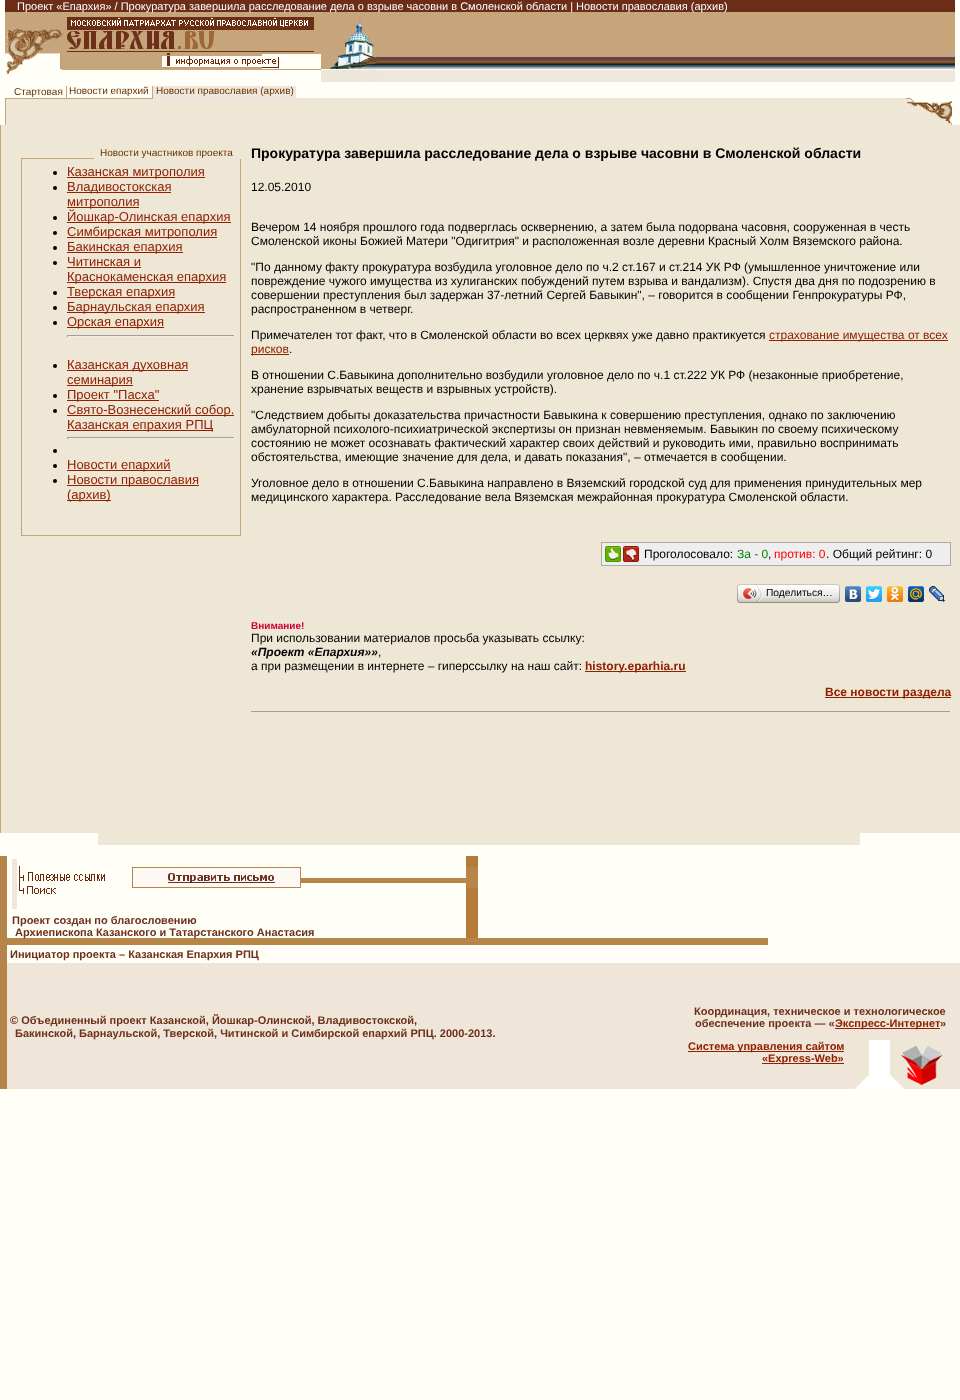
<svg xmlns="http://www.w3.org/2000/svg" width="960" height="1400">
<rect width="100%" height="100%" fill="#fffff7"/>
<rect x="5" width="950" height="12" fill="#6b2d17"/>
<image x="5" y="12" width="950" height="70" href="media/1.png"/>
<text x="17" y="10" style="font-family:Liberation Sans;font-size:11px;fill:#fff">Проект «Епархия» / Прокуратура завершила расследование дела о взрыве часовни в Смоленской области | Новости православия (архив)</text>
<image x="5" y="14" width="57" height="68" href="media/2.png"/>
<image x="62" y="17" width="259" height="65" href="media/3.png"/>
<image x="321" y="12" width="56" height="70" href="media/4.png"/>
<rect x="6" y="98" width="900" height="27" fill="#efe7d6"/>
<rect x="11" y="98" width="141" height="1" fill="#c6a57b"/>
<text x="14" y="95" style="font-family:Liberation Sans;font-size:10px;fill:#630">Стартовая</text>
<image x="66" y="86" width="1" height="14" href="media/5.png"/>
<text x="69" y="94" style="font-family:Liberation Sans;font-size:10px;fill:#630">Новости епархий</text>
<rect x="152" y="86" width="144" height="14" fill="#efe7de"/>
<rect x="152" y="86" width="1" height="13" fill="#c6a57b"/>
<text x="156" y="94" style="font-family:Liberation Sans;font-size:10px;fill:#630">Новости православия (архив)</text>
<image x="6" y="98" width="5" height="2" href="media/6.png"/>
<rect x="5" y="98" width="1" height="27" fill="#c5a57e"/>
<image x="906" y="98" width="49" height="27" href="media/7.png"/>
<rect y="125" width="1" height="708" fill="#c5a57e"/>
<rect x="1" y="125" width="959" height="708" fill="#efe7d6"/>
<rect x="21" y="158" width="73" height="1" fill="#c6a57b"/>
<text x="100" y="156" style="font-family:Liberation Sans;font-size:10px;fill:#630">Новости участников проекта</text>
<rect x="21" y="159" width="1" height="376" fill="#c6a57b"/>
<circle cx="55" cy="173" r="2" fill="#000"/>
<rect x="67" y="177" width="138" height="1" fill="#902000"/>
<text x="67" y="176" style="font-family:Liberation Sans;font-size:13px;fill:#902000">Казанская митрополия</text>
<circle cx="55" cy="188" r="2" fill="#000"/>
<rect x="67" y="192" width="104" height="1" fill="#902000"/>
<text x="67" y="191" style="font-family:Liberation Sans;font-size:13px;fill:#902000">Владивостокская</text>
<rect x="67" y="207" width="72" height="1" fill="#902000"/>
<text x="67" y="206" style="font-family:Liberation Sans;font-size:13px;fill:#902000">митрополия</text>
<circle cx="55" cy="218" r="2" fill="#000"/>
<rect x="67" y="222" width="164" height="1" fill="#902000"/>
<text x="67" y="221" style="font-family:Liberation Sans;font-size:13px;fill:#902000">Йошкар-Олинская епархия</text>
<circle cx="55" cy="233" r="2" fill="#000"/>
<rect x="67" y="237" width="150" height="1" fill="#902000"/>
<text x="67" y="236" style="font-family:Liberation Sans;font-size:13px;fill:#902000">Симбирская митрополия</text>
<circle cx="55" cy="248" r="2" fill="#000"/>
<rect x="67" y="252" width="116" height="1" fill="#902000"/>
<text x="67" y="251" style="font-family:Liberation Sans;font-size:13px;fill:#902000">Бакинская епархия</text>
<circle cx="55" cy="263" r="2" fill="#000"/>
<text x="67" y="266" style="font-family:Liberation Sans;font-size:13px;fill:#902000">Читинская и</text>
<rect x="67" y="267" width="74" height="1" fill="#902000"/>
<rect x="67" y="282" width="159" height="1" fill="#902000"/>
<text x="67" y="281" style="font-family:Liberation Sans;font-size:13px;fill:#902000">Краснокаменская епархия</text>
<circle cx="55" cy="293" r="2" fill="#000"/>
<rect x="67" y="297" width="108" height="1" fill="#902000"/>
<text x="67" y="296" style="font-family:Liberation Sans;font-size:13px;fill:#902000">Тверская епархия</text>
<circle cx="55" cy="308" r="2" fill="#000"/>
<rect x="67" y="312" width="138" height="1" fill="#902000"/>
<text x="67" y="311" style="font-family:Liberation Sans;font-size:13px;fill:#902000">Барнаульская епархия</text>
<circle cx="55" cy="323" r="2" fill="#000"/>
<rect x="67" y="327" width="97" height="1" fill="#902000"/>
<text x="67" y="326" style="font-family:Liberation Sans;font-size:13px;fill:#902000">Орская епархия</text>
<rect x="67" y="335" width="168" height="1" fill="#9f9f9f"/>
<rect x="234" y="335" width="1" height="2" fill="#eee"/>
<rect x="67" y="336" width="168" height="1" fill="#eee"/>
<rect x="67" y="335" width="1" height="2" fill="#9f9f9f"/>
<circle cx="55" cy="366" r="2" fill="#000"/>
<rect x="67" y="370" width="121" height="1" fill="#902000"/>
<text x="67" y="369" style="font-family:Liberation Sans;font-size:13px;fill:#902000">Казанская духовная</text>
<rect x="67" y="385" width="66" height="1" fill="#902000"/>
<text x="67" y="384" style="font-family:Liberation Sans;font-size:13px;fill:#902000">семинария</text>
<circle cx="55" cy="396" r="2" fill="#000"/>
<rect x="67" y="400" width="92" height="1" fill="#902000"/>
<text x="67" y="399" style="font-family:Liberation Sans;font-size:13px;fill:#902000">Проект "Пасха"</text>
<circle cx="55" cy="411" r="2" fill="#000"/>
<rect x="67" y="415" width="167" height="1" fill="#902000"/>
<text x="67" y="414" style="font-family:Liberation Sans;font-size:13px;fill:#902000">Свято-Вознесенский собор.</text>
<rect x="67" y="430" width="146" height="1" fill="#902000"/>
<text x="67" y="429" style="font-family:Liberation Sans;font-size:13px;fill:#902000">Казанская епрахия РПЦ</text>
<rect x="67" y="437" width="168" height="1" fill="#9f9f9f"/>
<rect x="234" y="437" width="1" height="2" fill="#eee"/>
<rect x="67" y="438" width="168" height="1" fill="#eee"/>
<rect x="67" y="437" width="1" height="2" fill="#9f9f9f"/>
<circle cx="55" cy="451" r="2" fill="#000"/>
<circle cx="55" cy="466" r="2" fill="#000"/>
<rect x="67" y="470" width="104" height="1" fill="#902000"/>
<text x="67" y="469" style="font-family:Liberation Sans;font-size:13px;fill:#902000">Новости епархий</text>
<circle cx="55" cy="481" r="2" fill="#000"/>
<rect x="67" y="485" width="132" height="1" fill="#902000"/>
<text x="67" y="484" style="font-family:Liberation Sans;font-size:13px;fill:#902000">Новости православия</text>
<rect x="67" y="500" width="44" height="1" fill="#902000"/>
<text x="67" y="499" style="font-family:Liberation Sans;font-size:13px;fill:#902000">(архив)</text>
<rect x="240" y="159" width="1" height="376" fill="#c6a57b"/>
<rect x="21" y="535" width="220" height="1" fill="#c6a57b"/>
<text x="251" y="158" style="font-family:Liberation Sans;font-size:14px;font-weight:bold;fill:#000">Прокуратура завершила расследование дела о взрыве часовни в Смоленской области</text>
<text x="251" y="191" style="font-family:Liberation Sans;font-size:12px;fill:#000">12.05.2010</text>
<text x="251" y="231" style="font-family:Liberation Sans;font-size:12px;fill:#000">Вечером 14 ноября прошлого года подверглась осквернению, а затем была подорвана часовня, сооруженная в честь</text>
<text x="251" y="245" style="font-family:Liberation Sans;font-size:12px;fill:#000">Смоленской иконы Божией Матери "Одигитрия" и расположенная возле деревни Красный Холм Вяземского района.</text>
<text x="251" y="271" style="font-family:Liberation Sans;font-size:12px;fill:#000">"По данному факту прокуратура возбудила уголовное дело по ч.2 ст.167 и ст.214 УК РФ (умышленное уничтожение или</text>
<text x="251" y="285" style="font-family:Liberation Sans;font-size:12px;fill:#000">повреждение чужого имущества из хулиганских побуждений путем взрыва и вандализм). Спустя два дня по подозрению в</text>
<text x="251" y="299" style="font-family:Liberation Sans;font-size:12px;fill:#000">совершении преступления был задержан 37-летний Сергей Бавыкин", – говорится в сообщении Генпрокуратуры РФ,</text>
<text x="251" y="313" style="font-family:Liberation Sans;font-size:12px;fill:#000">распространенном в четверг.</text>
<text x="251" y="339" style="font-family:Liberation Sans;font-size:12px;fill:#000">Примечателен тот факт, что в Смоленской области во всех церквях уже давно практикуется</text>
<rect x="769" y="340" width="179" height="1" fill="#902000"/>
<text x="769" y="339" style="font-family:Liberation Sans;font-size:12px;fill:#902000">страхование имущества от всех</text>
<rect x="251" y="354" width="38" height="1" fill="#902000"/>
<text x="251" y="353" style="font-family:Liberation Sans;font-size:12px;fill:#902000">рисков</text>
<text x="289" y="353" style="font-family:Liberation Sans;font-size:12px;fill:#000">.</text>
<text x="251" y="379" style="font-family:Liberation Sans;font-size:12px;fill:#000">В отношении С.Бавыкина дополнительно возбудили уголовное дело по ч.1 ст.222 УК РФ (незаконные приобретение,</text>
<text x="251" y="393" style="font-family:Liberation Sans;font-size:12px;fill:#000">хранение взрывчатых веществ и взрывных устройств).</text>
<text x="251" y="419" style="font-family:Liberation Sans;font-size:12px;fill:#000">"Следствием добыты доказательства причастности Бавыкина к совершению преступления, однако по заключению</text>
<text x="251" y="433" style="font-family:Liberation Sans;font-size:12px;fill:#000">амбулаторной психолого-психиатрической экспертизы он признан невменяемым. Бавыкин по своему психическому</text>
<text x="251" y="447" style="font-family:Liberation Sans;font-size:12px;fill:#000">состоянию не может осознавать фактический характер своих действий и руководить ими, правильно воспринимать</text>
<text x="251" y="461" style="font-family:Liberation Sans;font-size:12px;fill:#000">обстоятельства, имеющие значение для дела, и давать показания", – отмечается в сообщении.</text>
<text x="251" y="487" style="font-family:Liberation Sans;font-size:12px;fill:#000">Уголовное дело в отношении С.Бавыкина направлено в Вяземский городской суд для применения принудительных мер</text>
<text x="251" y="501" style="font-family:Liberation Sans;font-size:12px;fill:#000">медицинского характера. Расследование вела Вяземская межрайонная прокуратура Смоленской области.</text>
<rect x="601.5" y="542.5" width="349" height="23" fill="#eee" stroke="#aaa"/>
<image x="605" y="546" width="16" height="16" href="media/8.png"/>
<image x="623" y="546" width="16" height="16" href="media/9.png"/>
<text x="644" y="558" style="font-family:Liberation Sans;font-size:12px;fill:#000">Проголосовало:</text>
<text x="737" y="558" style="font-family:Liberation Sans;font-size:12px;fill:#008000">За - 0</text>
<text x="768" y="558" style="font-family:Liberation Sans;font-size:12px;fill:#000">,</text>
<text x="774" y="558" style="font-family:Liberation Sans;font-size:12px;fill:#f00">против: 0</text>
<text x="826" y="558" style="font-family:Liberation Sans;font-size:12px;fill:#000">. Общий рейтинг: 0</text>
<image x="740" y="584" width="97" height="19" href="media/10.png"/>
<image x="737" y="584" width="3" height="19" href="media/11.png"/>
<image x="743" y="585" width="20" height="17" href="media/12.png"/>
<text x="766" y="596" style="font-family:Liberation Sans;font-size:10.25px;fill:#000">Поделиться…</text>
<image x="837" y="584" width="3" height="19" href="media/13.png"/>
<image x="845" y="586" width="16" height="16" href="media/14.png"/>
<image x="866" y="586" width="16" height="16" href="media/15.png"/>
<image x="887" y="586" width="16" height="16" href="media/16.png"/>
<image x="908" y="586" width="16" height="16" href="media/17.png"/>
<image x="929" y="586" width="16" height="16" href="media/18.png"/>
<text x="251" y="629" style="font-family:Liberation Sans;font-size:10px;font-weight:bold;fill:#c03">Внимание!</text>
<text x="251" y="642" style="font-family:Liberation Sans;font-size:12px;fill:#000">При использовании материалов просьба указывать ссылку:</text>
<text x="251" y="656" style="font-family:Liberation Sans;font-size:12px;font-weight:bold;font-style:italic;fill:#000">«Проект «Епархия»»</text>
<text x="378" y="656" style="font-family:Liberation Sans;font-size:12px;fill:#000">,</text>
<text x="251" y="670" style="font-family:Liberation Sans;font-size:12px;fill:#000">а при размещении в интернете – гиперссылку на наш сайт:</text>
<rect x="585" y="671" width="101" height="1" fill="#902000"/>
<text x="585" y="670" style="font-family:Liberation Sans;font-size:12px;font-weight:bold;fill:#902000">history.eparhia.ru</text>
<rect x="825" y="697" width="126" height="1" fill="#902000"/>
<text x="825" y="696" style="font-family:Liberation Sans;font-size:12px;font-weight:bold;fill:#902000">Все новости раздела</text>
<rect x="251" y="711" width="700" height="1" fill="#9f9f9f"/>
<rect x="950" y="711" width="1" height="1" fill="#eee"/>
<rect x="98" y="833" width="762" height="12" fill="#efe7d6"/>
<image x="0" y="856" width="478" height="82" href="media/19.png"/>
<image x="12" y="859" width="93" height="50" href="media/20.png"/>
<image x="132" y="867" width="169" height="21" href="media/21.png"/>
<image x="301" y="867" width="177" height="21" href="media/22.png"/>
<text x="12" y="924" style="font-family:Liberation Sans;font-size:11px;font-weight:bold;fill:#6d301a">Проект создан по благословению</text>
<rect y="938" width="768" height="7" fill="#b78548"/>
<text x="15" y="936" style="font-family:Liberation Sans;font-size:11px;font-weight:bold;fill:#6d301a">Архиепископа Казанского и Татарстанского Анастасия</text>
<rect y="945" width="7" height="144" fill="#b5844a"/>
<text x="10" y="958" style="font-family:Liberation Sans;font-size:11px;font-weight:bold;fill:#6d301a">Инициатор проекта – Казанская Епархия РПЦ</text>
<rect x="7" y="963" width="953" height="126" fill="#efe6d9"/>
<text x="10" y="1024" style="font-family:Liberation Sans;font-size:11px;font-weight:bold;fill:#6d301a">© Объединенный проект Казанской, Йошкар-Олинской, Владивостокской,</text>
<text x="15" y="1037" style="font-family:Liberation Sans;font-size:11px;font-weight:bold;fill:#6d301a">Бакинской, Барнаульской, Тверской, Читинской и Симбирской епархий РПЦ. 2000-2013.</text>
<text x="694" y="1015" style="font-family:Liberation Sans;font-size:11px;font-weight:bold;fill:#6d301a">Координация, техническое и технологическое</text>
<text x="695" y="1027" style="font-family:Liberation Sans;font-size:11px;font-weight:bold;fill:#6d301a">обеспечение проекта — «</text>
<rect x="835" y="1028" width="105" height="1" fill="#902000"/>
<text x="835" y="1027" style="font-family:Liberation Sans;font-size:11px;font-weight:bold;fill:#902000">Экспресс-Интернет</text>
<text x="940" y="1027" style="font-family:Liberation Sans;font-size:11px;font-weight:bold;fill:#6d301a">»</text>
<rect x="688" y="1051" width="156" height="1" fill="#902000"/>
<text x="688" y="1050" style="font-family:Liberation Sans;font-size:11px;font-weight:bold;fill:#902000">Система управления сайтом</text>
<image x="855" y="1040" width="88" height="49" href="media/23.png"/>
<rect x="762" y="1063" width="82" height="1" fill="#902000"/>
<text x="762" y="1062" style="font-family:Liberation Sans;font-size:11px;font-weight:bold;fill:#902000">«Express-Web»</text>
</svg>
